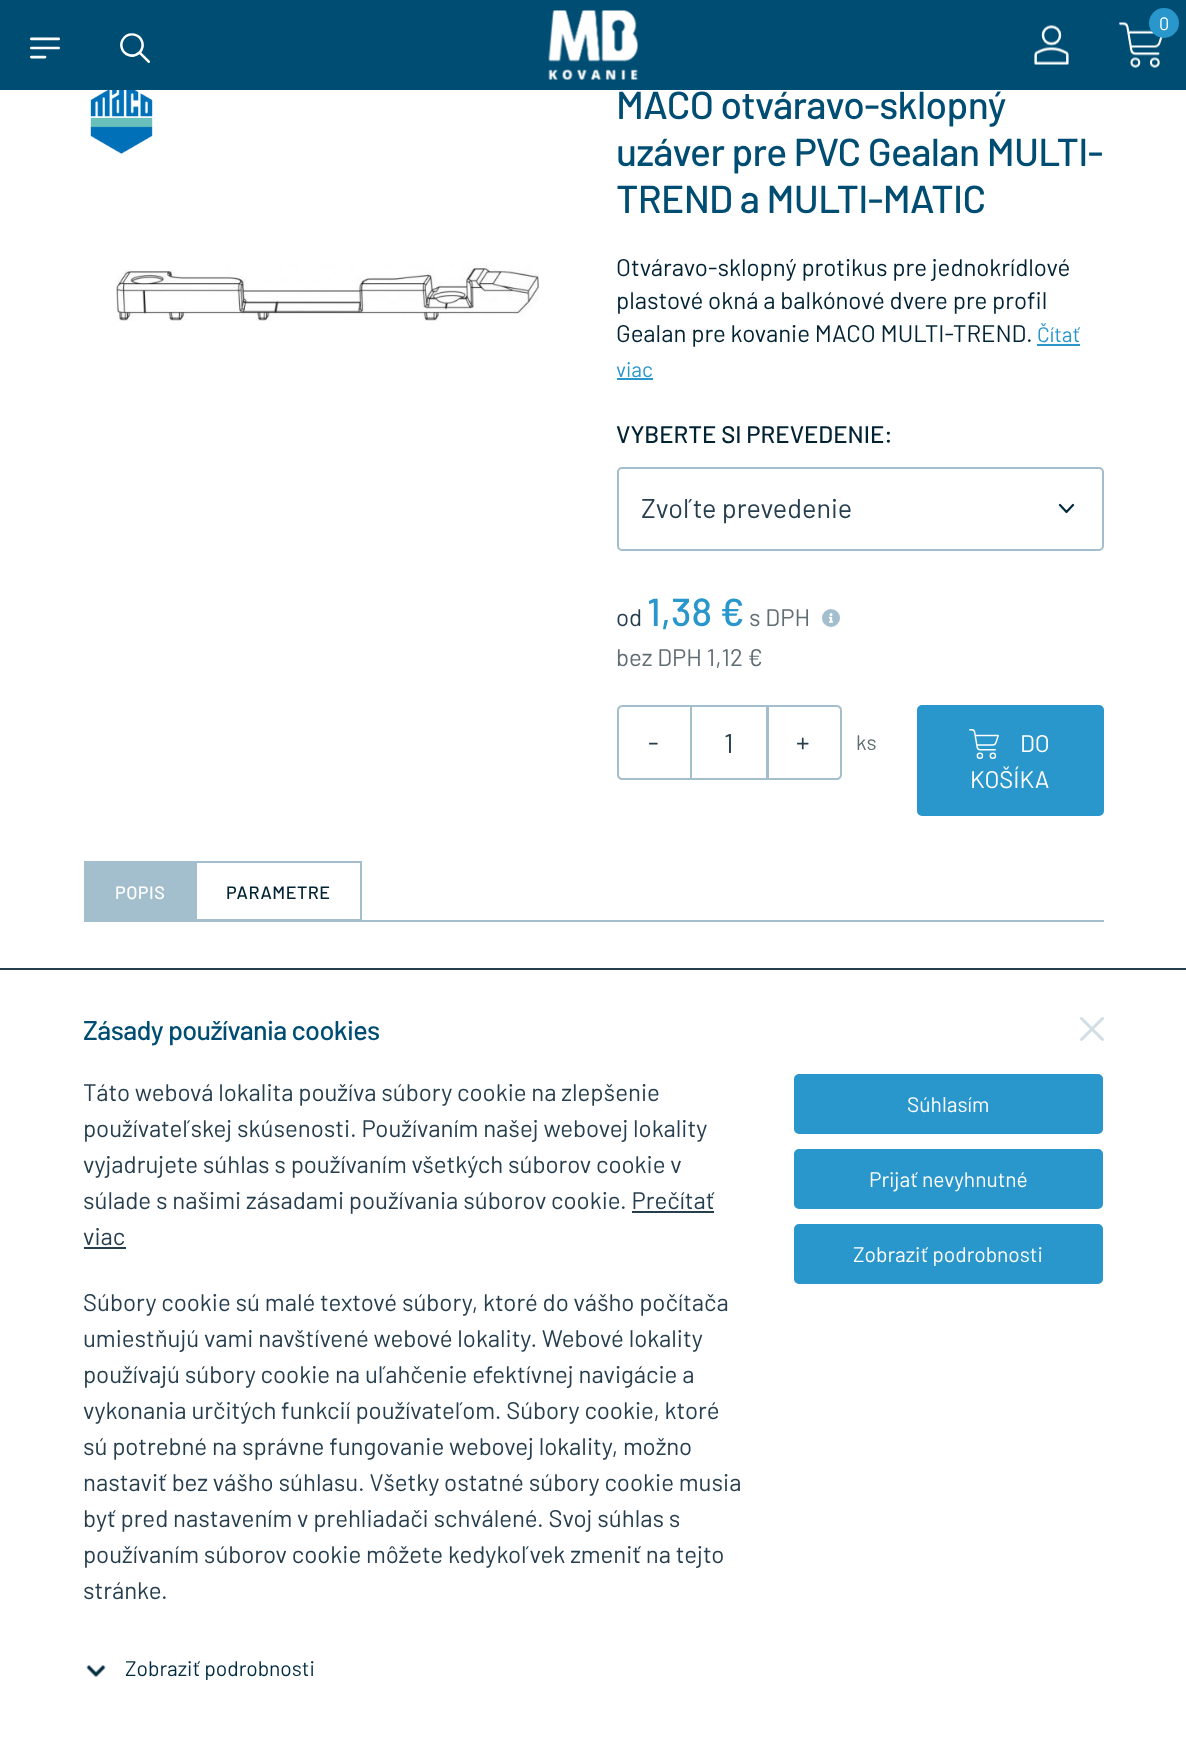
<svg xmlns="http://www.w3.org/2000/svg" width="1186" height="1743">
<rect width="100%" height="100%" fill="#fff"/>
<rect width="1186" height="90" fill="#004d73"/>
<image x="548" y="10" width="91" height="70" href="media/1.png"/>
<image x="1034" y="25" width="35" height="40" href="media/2.png"/>
<image x="1119" y="22" width="44" height="46" href="media/3.png"/>
<circle cx="1164" cy="23" r="15" fill="#2996cc"/>
<text x="1159" y="30" style="font-family:Barlow;font-size:18px;fill:#fff">0</text>
<image x="30" y="37" width="30" height="22" href="media/4.png"/>
<image x="120" y="33" width="30" height="30" href="media/5.png"/>
<image x="90" y="90" width="63" height="64" href="media/6.png"/>
<image x="116" y="263" width="423" height="58" href="media/7.png"/>
<text x="616" y="119" style="font-family:Barlow;font-size:39px;font-weight:500;letter-spacing:-0.6px;fill:#004d73">MACO otváravo-sklopný</text>
<text x="616" y="166" style="font-family:Barlow;font-size:39px;font-weight:500;letter-spacing:-0.6px;fill:#004d73">uzáver pre PVC Gealan MULTI-</text>
<text x="616" y="213" style="font-family:Barlow;font-size:39px;font-weight:500;letter-spacing:-0.6px;fill:#004d73">TREND a MULTI-MATIC</text>
<text x="616" y="276" style="font-family:Barlow;font-size:24px;fill:#023">Otváravo-sklopný protikus pre jednokrídlové</text>
<text x="616" y="309" style="font-family:Barlow;font-size:24px;fill:#023">plastové okná a balkónové dvere pre profil</text>
<text x="616" y="342" style="font-family:Barlow;font-size:24px;fill:#023">Gealan pre kovanie MACO MULTI-TREND.</text>
<text x="1037" y="342" style="font-family:Barlow;font-size:21px;fill:#2996cc">Čítať</text>
<rect x="1037" y="344" width="43" height="2" fill="#2996cc"/>
<text x="616" y="377" style="font-family:Barlow;font-size:21px;fill:#2996cc">viac</text>
<rect x="617" y="378" width="36" height="2" fill="#2996cc"/>
<text x="616" y="443" style="font-family:Barlow;font-size:24px;font-weight:500;fill:#023">VYBERTE SI PREVEDENIE:</text>
<path d="M1060 505l6.5 7l6.5-7" fill="none" stroke="#002b40" stroke-width="2.2" stroke-linecap="round" stroke-linejoin="round"/>
<rect x="618" y="468" width="485" height="82" rx="4" fill="none" stroke="#a3becc" stroke-width="2"/>
<text x="641" y="518" style="font-family:Barlow;font-size:27px;fill:#263e4d">Zvoľte prevedenie</text>
<text x="616" y="626" style="font-family:Barlow;font-size:24px;fill:#263e4d">od</text>
<text x="647" y="626" style="font-family:Barlow;font-size:39px;font-weight:500;fill:#2996cc">1,38 €</text>
<text x="749" y="626" style="font-family:Barlow;font-size:24px;fill:#606d73">s DPH</text>
<image x="822" y="609" width="18" height="18" href="media/8.png"/>
<text x="616" y="666" style="font-family:Barlow;font-size:24px;fill:#606d73">bez DPH 1,12 €</text>
<rect x="691" y="706" width="76" height="73" fill="none" stroke="#a3becc" stroke-width="2"/>
<path d="M622 706h69v73h-69c-2 0-4-2-4-4v-65c0-2 2-4 4-4z" fill="#fff" stroke="#a3becc" stroke-width="2"/>
<text x="648" y="752" style="font-family:Barlow;font-size:27px;fill:#263e4d">-</text>
<text x="724" y="753" style="font-family:Barlow;font-size:27px;fill:#263e4d">1</text>
<path d="M768 706h69c2 0 4 2 4 4v65c0 2-2 4-4 4h-69z" fill="#fff" stroke="#a3becc" stroke-width="2"/>
<text x="796" y="752" style="font-family:Barlow;font-size:27px;fill:#263e4d">+</text>
<text x="856" y="750" style="font-family:Barlow;font-size:21px;fill:#606d73">ks</text>
<rect x="918" y="706" width="185" height="109" rx="4" fill="#2996cc" stroke="#2996cc" stroke-width="2"/>
<image x="969" y="729" width="30" height="30" href="media/9.png"/>
<text x="1020" y="752" style="font-family:Barlow;font-size:24px;fill:#fff">DO</text>
<text x="970" y="788" style="font-family:Barlow;font-size:24px;fill:#fff">KOŠÍKA</text>
<rect x="84" y="920" width="1020" height="2" fill="#a3becc"/>
<rect x="84" y="861" width="111" height="59" fill="#a3becc"/>
<text x="115" y="899" style="font-family:Barlow;font-size:18px;font-weight:500;letter-spacing:0.5px;fill:#fff">POPIS</text>
<rect x="196" y="862" width="165" height="58" fill="none" stroke="#a3becc" stroke-width="2"/>
<text x="226" y="899" style="font-family:Barlow;font-size:18px;font-weight:500;letter-spacing:0.5px;fill:#023">PARAMETRE</text>
<rect y="968" width="1186" height="2" fill="#263e4d"/>
<text x="83" y="1040" style="font-family:Barlow;font-size:27px;font-weight:500;letter-spacing:-0.6px;fill:#004d73">Zásady používania cookies</text>
<image x="1080" y="1017" width="24" height="24" href="media/10.png"/>
<text x="83" y="1101" style="font-family:Barlow;font-size:24px;fill:#263e4d">Táto webová lokalita používa súbory cookie na zlepšenie</text>
<text x="83" y="1137" style="font-family:Barlow;font-size:24px;fill:#263e4d">používateľskej skúsenosti. Používaním našej webovej lokality</text>
<text x="83" y="1173" style="font-family:Barlow;font-size:24px;fill:#263e4d">vyjadrujete súhlas s používaním všetkých súborov cookie v</text>
<text x="83" y="1209" style="font-family:Barlow;font-size:24px;fill:#263e4d">súlade s našimi zásadami používania súborov cookie. Prečítať</text>
<text x="83" y="1245" style="font-family:Barlow;font-size:24px;fill:#263e4d">viac</text>
<rect x="632" y="1211" width="82" height="2" fill="#263e4d"/>
<rect x="84" y="1247" width="42" height="2" fill="#263e4d"/>
<text x="83" y="1311" style="font-family:Barlow;font-size:24px;fill:#263e4d">Súbory cookie sú malé textové súbory, ktoré do vášho počítača</text>
<text x="83" y="1347" style="font-family:Barlow;font-size:24px;fill:#263e4d">umiestňujú vami navštívené webové lokality. Webové lokality</text>
<text x="83" y="1383" style="font-family:Barlow;font-size:24px;fill:#263e4d">používajú súbory cookie na uľahčenie efektívnej navigácie a</text>
<text x="83" y="1419" style="font-family:Barlow;font-size:24px;fill:#263e4d">vykonania určitých funkcií používateľom. Súbory cookie, ktoré</text>
<text x="83" y="1455" style="font-family:Barlow;font-size:24px;fill:#263e4d">sú potrebné na správne fungovanie webovej lokality, možno</text>
<text x="83" y="1491" style="font-family:Barlow;font-size:24px;fill:#263e4d">nastaviť bez vášho súhlasu. Všetky ostatné súbory cookie musia</text>
<text x="83" y="1527" style="font-family:Barlow;font-size:24px;fill:#263e4d">byť pred nastavením v prehliadači schválené. Svoj súhlas s</text>
<text x="83" y="1563" style="font-family:Barlow;font-size:24px;fill:#263e4d">používaním súborov cookie môžete kedykoľvek zmeniť na tejto</text>
<text x="83" y="1599" style="font-family:Barlow;font-size:24px;fill:#263e4d">stránke.</text>
<image x="86" y="1665" width="20" height="12" href="media/11.png"/>
<text x="125" y="1676" style="font-family:Barlow;font-size:21px;fill:#002b40">Zobraziť podrobnosti</text>
<rect x="795" y="1075" width="307" height="58" rx="4" fill="#2996cc" stroke="#2996cc" stroke-width="2"/>
<text x="907" y="1112" style="font-family:Barlow;font-size:21px;fill:#fff">Súhlasím</text>
<rect x="795" y="1150" width="307" height="58" rx="4" fill="#2996cc" stroke="#2996cc" stroke-width="2"/>
<text x="869" y="1187" style="font-family:Barlow;font-size:21px;fill:#fff">Prijať nevyhnutné</text>
<rect x="795" y="1225" width="307" height="58" rx="4" fill="#2996cc" stroke="#2996cc" stroke-width="2"/>
<text x="853" y="1262" style="font-family:Barlow;font-size:21px;fill:#fff">Zobraziť podrobnosti</text>
</svg>
